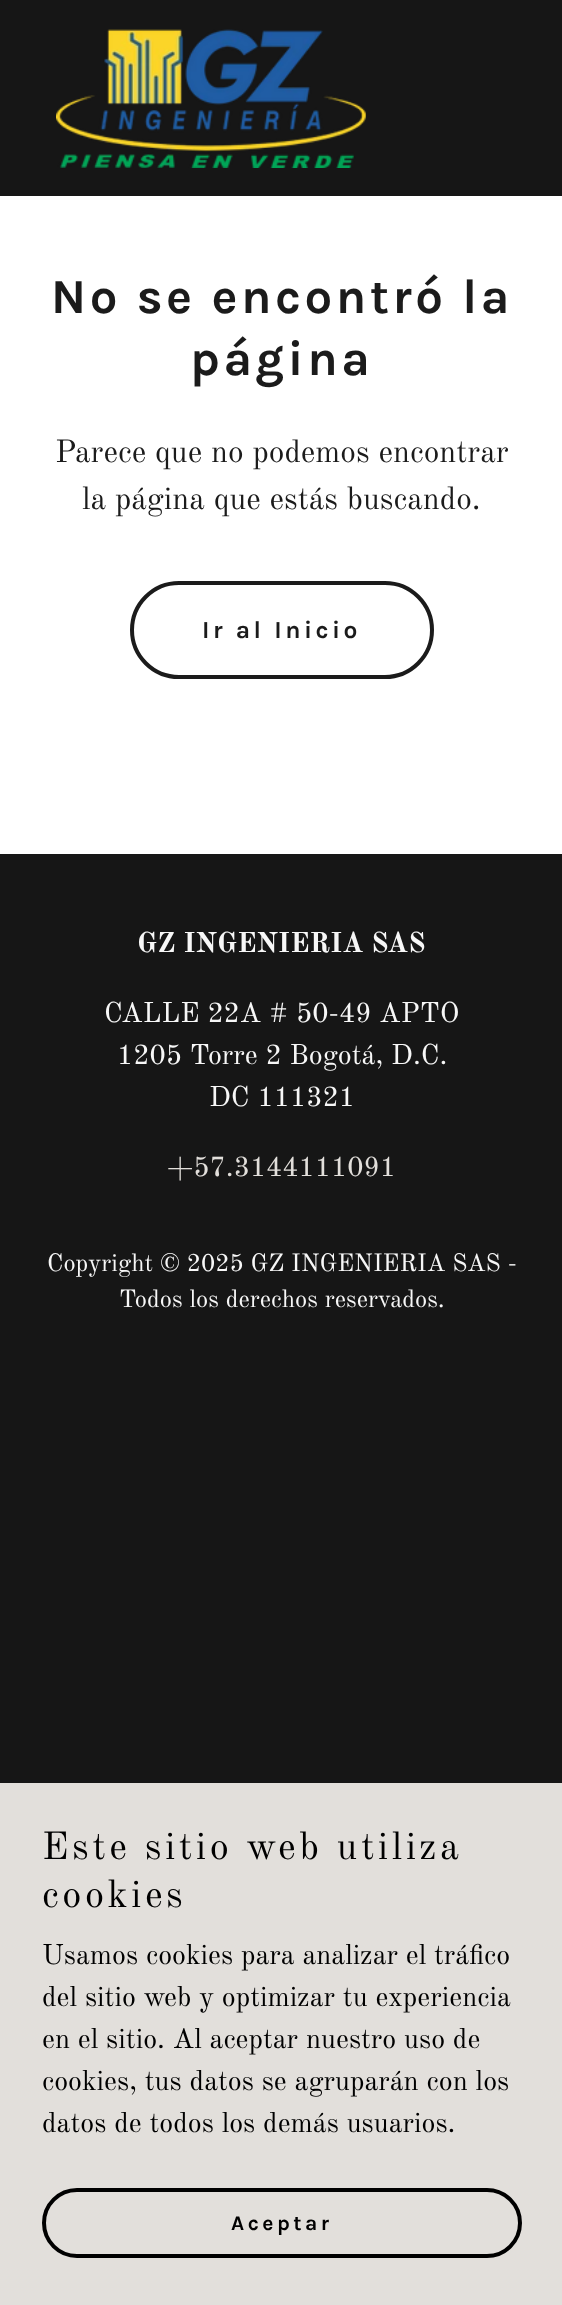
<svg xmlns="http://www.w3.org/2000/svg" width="562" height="2305">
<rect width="100%" height="100%" fill="#161616"/>
<image x="56" y="29" width="310" height="139" href="media/1.png"/>
<rect y="196" width="562" height="658" fill="#fff"/>
<text x="51" y="313" style="font-family:Karla;font-size:49px;font-weight:bold;letter-spacing:3.5px;fill:#1b1b1b">No se encontró la</text>
<text x="190" y="375" style="font-family:Karla;font-size:49px;font-weight:bold;letter-spacing:3.5px;fill:#1b1b1b">página</text>
<text x="55" y="462" style="font-family:Old Standard TT;font-size:31.5px;fill:#1b1b1b">Parece que no podemos encontrar</text>
<text x="82" y="509" style="font-family:Old Standard TT;font-size:31.5px;fill:#1b1b1b">la página que estás buscando.</text>
<rect x="132" y="583" width="300" height="94" rx="47" fill="none" stroke="#1b1b1b" stroke-width="4"/>
<text x="202" y="638" style="font-family:Karla;font-size:24.5px;font-weight:bold;letter-spacing:3.5px;fill:#1b1b1b">Ir al Inicio</text>
<text x="137" y="952" style="font-family:Old Standard TT;font-size:28px;font-weight:bold;fill:#f7f7f7">GZ INGENIERIA SAS</text>
<text x="104" y="1022" style="font-family:Old Standard TT;font-size:28px;fill:#f7f7f7">CALLE 22A # 50-49 APTO</text>
<text x="117" y="1064" style="font-family:Old Standard TT;font-size:28px;fill:#f7f7f7">1205 Torre 2 Bogotá, D.C.</text>
<text x="209" y="1106" style="font-family:Old Standard TT;font-size:28px;fill:#f7f7f7">DC 111321</text>
<text x="167" y="1176" style="font-family:Old Standard TT;font-size:28px;fill:#e2dfdb">+57.3144111091</text>
<text x="47" y="1271" style="font-family:Old Standard TT;font-size:24.5px;fill:#f7f7f7">Copyright © 2025 GZ INGENIERIA SAS -</text>
<text x="119" y="1307" style="font-family:Old Standard TT;font-size:24.5px;fill:#f7f7f7">Todos los derechos reservados.</text>
<rect y="1783" width="562" height="522" fill="#e2dfdb"/>
<text x="42" y="1859" style="font-family:Old Standard TT;font-size:38.5px;letter-spacing:3.5px;fill:#000">Este sitio web utiliza</text>
<text x="42" y="1907" style="font-family:Old Standard TT;font-size:38.5px;letter-spacing:3.5px;fill:#000">cookies</text>
<text x="42" y="1964" style="font-family:Old Standard TT;font-size:28px;fill:#000">Usamos cookies para analizar el tráfico</text>
<text x="42" y="2006" style="font-family:Old Standard TT;font-size:28px;fill:#000">del sitio web y optimizar tu experiencia</text>
<text x="42" y="2048" style="font-family:Old Standard TT;font-size:28px;fill:#000">en el sitio. Al aceptar nuestro uso de</text>
<text x="42" y="2090" style="font-family:Old Standard TT;font-size:28px;fill:#000">cookies, tus datos se agruparán con los</text>
<text x="42" y="2132" style="font-family:Old Standard TT;font-size:28px;fill:#000">datos de todos los demás usuarios.</text>
<rect x="44" y="2190" width="476" height="66" rx="33" fill="none" stroke="#000" stroke-width="4"/>
<text x="231" y="2230" style="font-family:Karla;font-size:21px;font-weight:bold;letter-spacing:3.5px;fill:#000">Aceptar</text>
</svg>
